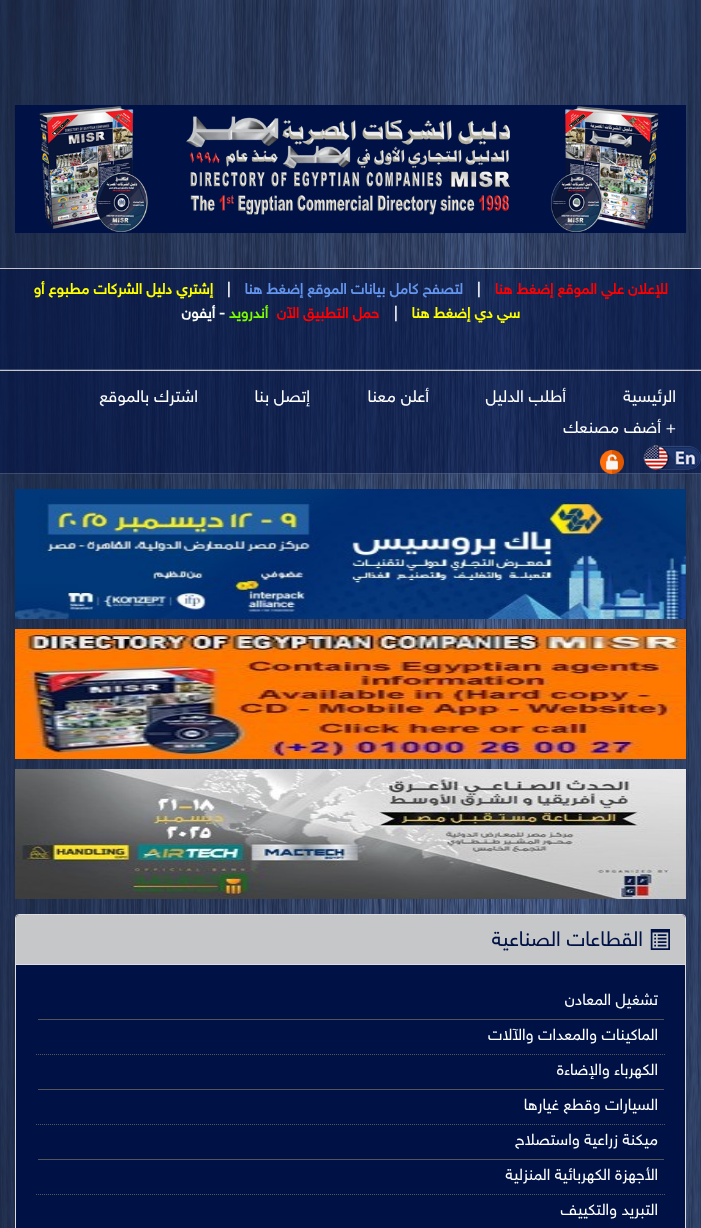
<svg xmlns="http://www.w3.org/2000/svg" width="701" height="1228">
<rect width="100%" height="100%" fill="#fff"/>
<image x="0" y="0" width="701" height="1228" href="media/1.png"/>
<image x="15" y="105" width="671" height="128" href="media/2.png"/>
<rect y="269" width="701" height="101" fill="#0012458f"/>
<rect y="268" width="701" height="1" fill="#c5c7c9"/>
<rect y="369" width="701" height="1" fill="#ffffff33"/>
<text x="668" y="294" style="font-family:'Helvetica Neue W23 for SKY';font-size:15px;font-weight:bold;direction:rtl;fill:#f00">للإعلان علي الموقع إضغط هنا</text>
<text x="477" y="294" style="font-family:'Helvetica Neue W23 for SKY';font-size:15px;font-weight:bold;fill:#fff">|</text>
<text x="463" y="294" style="font-family:'Helvetica Neue W23 for SKY';font-size:15px;font-weight:bold;direction:rtl;fill:#6495ed">لتصفح كامل بيانات الموقع إضغط هنا</text>
<text x="227" y="294" style="font-family:'Helvetica Neue W23 for SKY';font-size:15px;font-weight:bold;fill:#fff">|</text>
<text x="213" y="294" style="font-family:'Helvetica Neue W23 for SKY';font-size:15px;font-weight:bold;direction:rtl;fill:#ff0">إشتري دليل الشركات مطبوع أو</text>
<text x="520" y="318" style="font-family:'Helvetica Neue W23 for SKY';font-size:15px;font-weight:bold;direction:rtl;fill:#ff0">سي دي إضغط هنا</text>
<text x="394" y="318" style="font-family:'Helvetica Neue W23 for SKY';font-size:15px;font-weight:bold;fill:#fff">|</text>
<text x="379" y="318" style="font-family:'Helvetica Neue W23 for SKY';font-size:15px;font-weight:bold;direction:rtl;fill:#f00">حمل التطبيق الآن</text>
<text x="268" y="318" style="font-family:'Helvetica Neue W23 for SKY';font-size:15px;font-weight:bold;direction:rtl;fill:#7cfc00">أندرويد</text>
<text x="219" y="318" style="font-family:'Helvetica Neue W23 for SKY';font-size:15px;font-weight:bold;fill:#fff">-</text>
<text x="215" y="318" style="font-family:'Helvetica Neue W23 for SKY';font-size:15px;font-weight:bold;direction:rtl;fill:#fff">أيفون</text>
<rect y="371" width="701" height="103" fill="#0012458f"/>
<rect y="370" width="701" height="1" fill="#c5c7c9"/>
<rect y="473" width="701" height="1" fill="#ffffff33"/>
<text x="676" y="402" style="font-family:'Helvetica Neue W23 for SKY';font-size:17px;direction:rtl;fill:#fff">الرئيسية</text>
<text x="566" y="402" style="font-family:'Helvetica Neue W23 for SKY';font-size:17px;direction:rtl;fill:#fff">أطلب الدليل</text>
<text x="429" y="402" style="font-family:'Helvetica Neue W23 for SKY';font-size:17px;direction:rtl;fill:#fff">أعلن معنا</text>
<text x="310" y="402" style="font-family:'Helvetica Neue W23 for SKY';font-size:17px;direction:rtl;fill:#fff">إتصل بنا</text>
<text x="198" y="402" style="font-family:'Helvetica Neue W23 for SKY';font-size:17px;direction:rtl;fill:#fff">اشترك بالموقع</text>
<text x="676" y="433" style="font-family:'Helvetica Neue W23 for SKY';font-size:17px;direction:rtl;fill:#fff">+ أضف مصنعك</text>
<image x="643" y="445" width="58" height="25" href="media/3.png"/>
<image x="600" y="450" width="24" height="24" href="media/4.png"/>
<image x="15" y="489" width="671" height="130" href="media/5.png"/>
<image x="15" y="629" width="671" height="130" href="media/6.png"/>
<image x="15" y="769" width="671" height="130" href="media/7.png"/>
<rect x="15.5" y="914.5" width="670" height="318" rx="3.5" fill="none" stroke="#ddd"/>
<path d="M19 915h663c1.5 0 3 1.5 3 3v47h-669v-47c0-1.5 1.5-3 3-3z" fill="#c5c7c9"/>
<rect x="16" y="964" width="669" height="1" fill="#ddd"/>
<image x="650" y="929" width="20" height="21" href="media/8.png"/>
<text x="643" y="946" style="font-family:'Helvetica Neue W23 for SKY';font-size:21px;direction:rtl;fill:#001245">القطاعات الصناعية</text>
<rect x="16" y="965" width="669" height="263" fill="#001245"/>
<rect x="38" y="1019" width="626" height="1" fill="#555"/>
<text x="658" y="1005" style="font-family:'Helvetica Neue W23 for SKY';font-size:16px;direction:rtl;fill:#fff">تشغيل المعادن</text>
<path d="M36 1054.5h629" fill="none" stroke="#555" stroke-dasharray="1 1"/>
<text x="658" y="1040" style="font-family:'Helvetica Neue W23 for SKY';font-size:16px;direction:rtl;fill:#fff">الماكينات والمعدات والآلات</text>
<rect x="38" y="1089" width="626" height="1" fill="#555"/>
<text x="658" y="1075" style="font-family:'Helvetica Neue W23 for SKY';font-size:16px;direction:rtl;fill:#fff">الكهرباء والإضاءة</text>
<path d="M36 1124.5h629" fill="none" stroke="#555" stroke-dasharray="1 1"/>
<text x="658" y="1110" style="font-family:'Helvetica Neue W23 for SKY';font-size:16px;direction:rtl;fill:#fff">السيارات وقطع غيارها</text>
<rect x="38" y="1159" width="626" height="1" fill="#555"/>
<text x="658" y="1145" style="font-family:'Helvetica Neue W23 for SKY';font-size:16px;direction:rtl;fill:#fff">ميكنة زراعية واستصلاح</text>
<path d="M36 1194.5h629" fill="none" stroke="#555" stroke-dasharray="1 1"/>
<text x="658" y="1180" style="font-family:'Helvetica Neue W23 for SKY';font-size:16px;direction:rtl;fill:#fff">الأجهزة الكهربائية المنزلية</text>
<text x="658" y="1215" style="font-family:'Helvetica Neue W23 for SKY';font-size:16px;direction:rtl;fill:#fff">التبريد والتكييف</text>
</svg>
